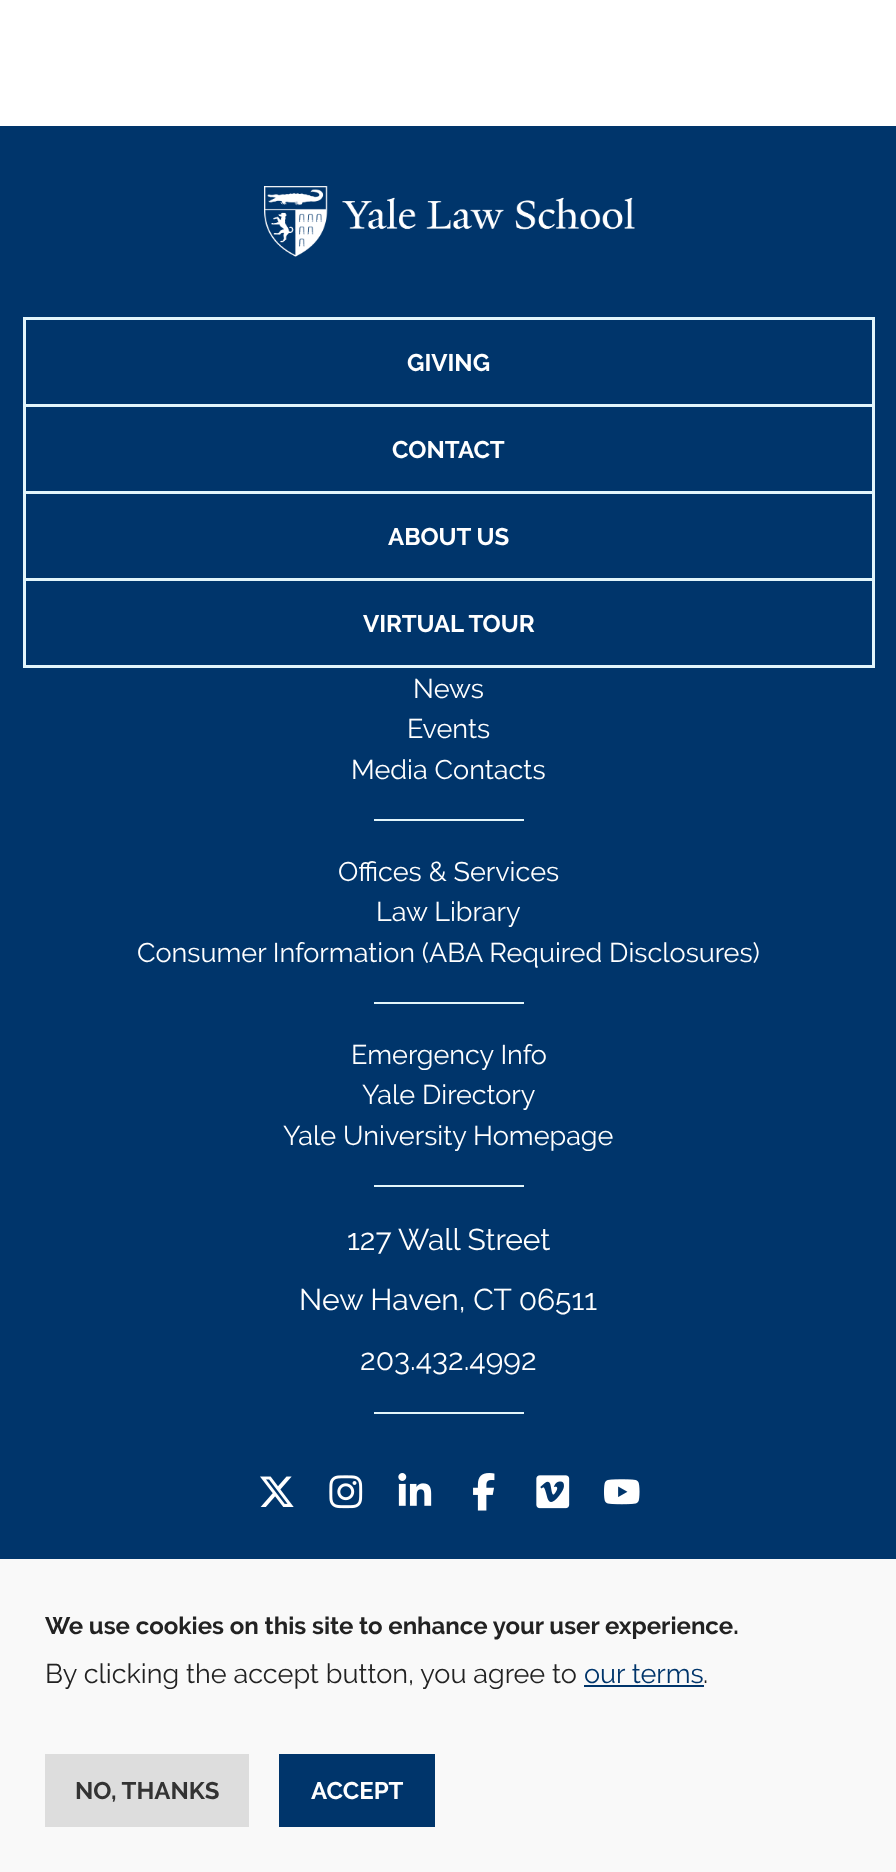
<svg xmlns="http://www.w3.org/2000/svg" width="896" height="1872">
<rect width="100%" height="100%" fill="#fff"/>
<rect y="126" width="896" height="1433" fill="#00356b"/>
<image x="264" y="186" width="371" height="71" href="media/1.png"/>
<rect x="24.5" y="318.5" width="849" height="348" fill="none" stroke="#e2f5fb" stroke-width="3"/>
<rect x="26" y="404" width="846" height="3" fill="#e2f5fb"/>
<text x="407" y="371" style="font-family:Raleway;font-size:24px;font-weight:bold;fill:#fff">GIVING</text>
<rect x="26" y="491" width="846" height="3" fill="#e2f5fb"/>
<text x="392" y="458" style="font-family:Raleway;font-size:24px;font-weight:bold;fill:#fff">CONTACT</text>
<rect x="26" y="578" width="846" height="3" fill="#e2f5fb"/>
<text x="388" y="545" style="font-family:Raleway;font-size:24px;font-weight:bold;fill:#fff">ABOUT US</text>
<text x="363" y="632" style="font-family:Raleway;font-size:24px;font-weight:bold;fill:#fff">VIRTUAL TOUR</text>
<text x="413" y="698" style="font-family:Raleway;font-size:27px;fill:#fff">News</text>
<text x="407" y="738" style="font-family:Raleway;font-size:27px;fill:#fff">Events</text>
<text x="351" y="779" style="font-family:Raleway;font-size:27px;fill:#fff">Media Contacts</text>
<rect x="374" y="819" width="150" height="2" fill="#e2f5fb"/>
<text x="338" y="881" style="font-family:Raleway;font-size:27px;fill:#fff">Offices &amp; Services</text>
<text x="376" y="921" style="font-family:Raleway;font-size:27px;fill:#fff">Law Library</text>
<text x="137" y="962" style="font-family:Raleway;font-size:27px;fill:#fff">Consumer Information (ABA Required Disclosures)</text>
<rect x="374" y="1002" width="150" height="2" fill="#e2f5fb"/>
<text x="351" y="1064" style="font-family:Raleway;font-size:27px;fill:#fff">Emergency Info</text>
<text x="362" y="1104" style="font-family:Raleway;font-size:27px;fill:#fff">Yale Directory</text>
<text x="283" y="1145" style="font-family:Raleway;font-size:27px;fill:#fff">Yale University Homepage</text>
<rect x="374" y="1185" width="150" height="2" fill="#e2f5fb"/>
<text x="347" y="1250" style="font-family:Raleway;font-size:30px;fill:#fff">127 Wall Street</text>
<text x="299" y="1310" style="font-family:Raleway;font-size:30px;fill:#fff">New Haven, CT 06511</text>
<text x="360" y="1370" style="font-family:Raleway;font-size:30px;fill:#fff">203.432.4992</text>
<rect x="374" y="1412" width="150" height="2" fill="#e2f5fb"/>
<image x="260" y="1476" width="34" height="31" href="media/2.png"/>
<image x="329" y="1475" width="34" height="34" href="media/3.png"/>
<image x="398" y="1473" width="34" height="33" href="media/4.png"/>
<image x="473" y="1473" width="22" height="38" href="media/5.png"/>
<image x="536" y="1475" width="34" height="34" href="media/6.png"/>
<image x="604" y="1479" width="36" height="26" href="media/7.png"/>
<rect y="1559" width="896" height="313" fill="#f9f9f9"/>
<text x="45" y="1634" style="font-family:Raleway;font-size:24px;font-weight:bold;fill:#222">We use cookies on this site to enhance your user experience.</text>
<text x="45" y="1683" style="font-family:Raleway;font-size:27px;fill:#222">By clicking the accept button, you agree to</text>
<text x="584" y="1683" style="font-family:Raleway;font-size:27px;fill:#00356b">our terms</text>
<rect x="584" y="1685" width="120" height="2" fill="#00356b"/>
<text x="703" y="1683" style="font-family:Raleway;font-size:27px;fill:#222">.</text>
<rect x="45" y="1754" width="204" height="73" fill="#ddd"/>
<text x="75" y="1799" style="font-family:Raleway;font-size:24px;font-weight:bold;fill:#333">NO, THANKS</text>
<rect x="279" y="1754" width="156" height="73" fill="#00356b"/>
<text x="311" y="1799" style="font-family:Raleway;font-size:24px;font-weight:bold;fill:#fff">ACCEPT</text>
</svg>
